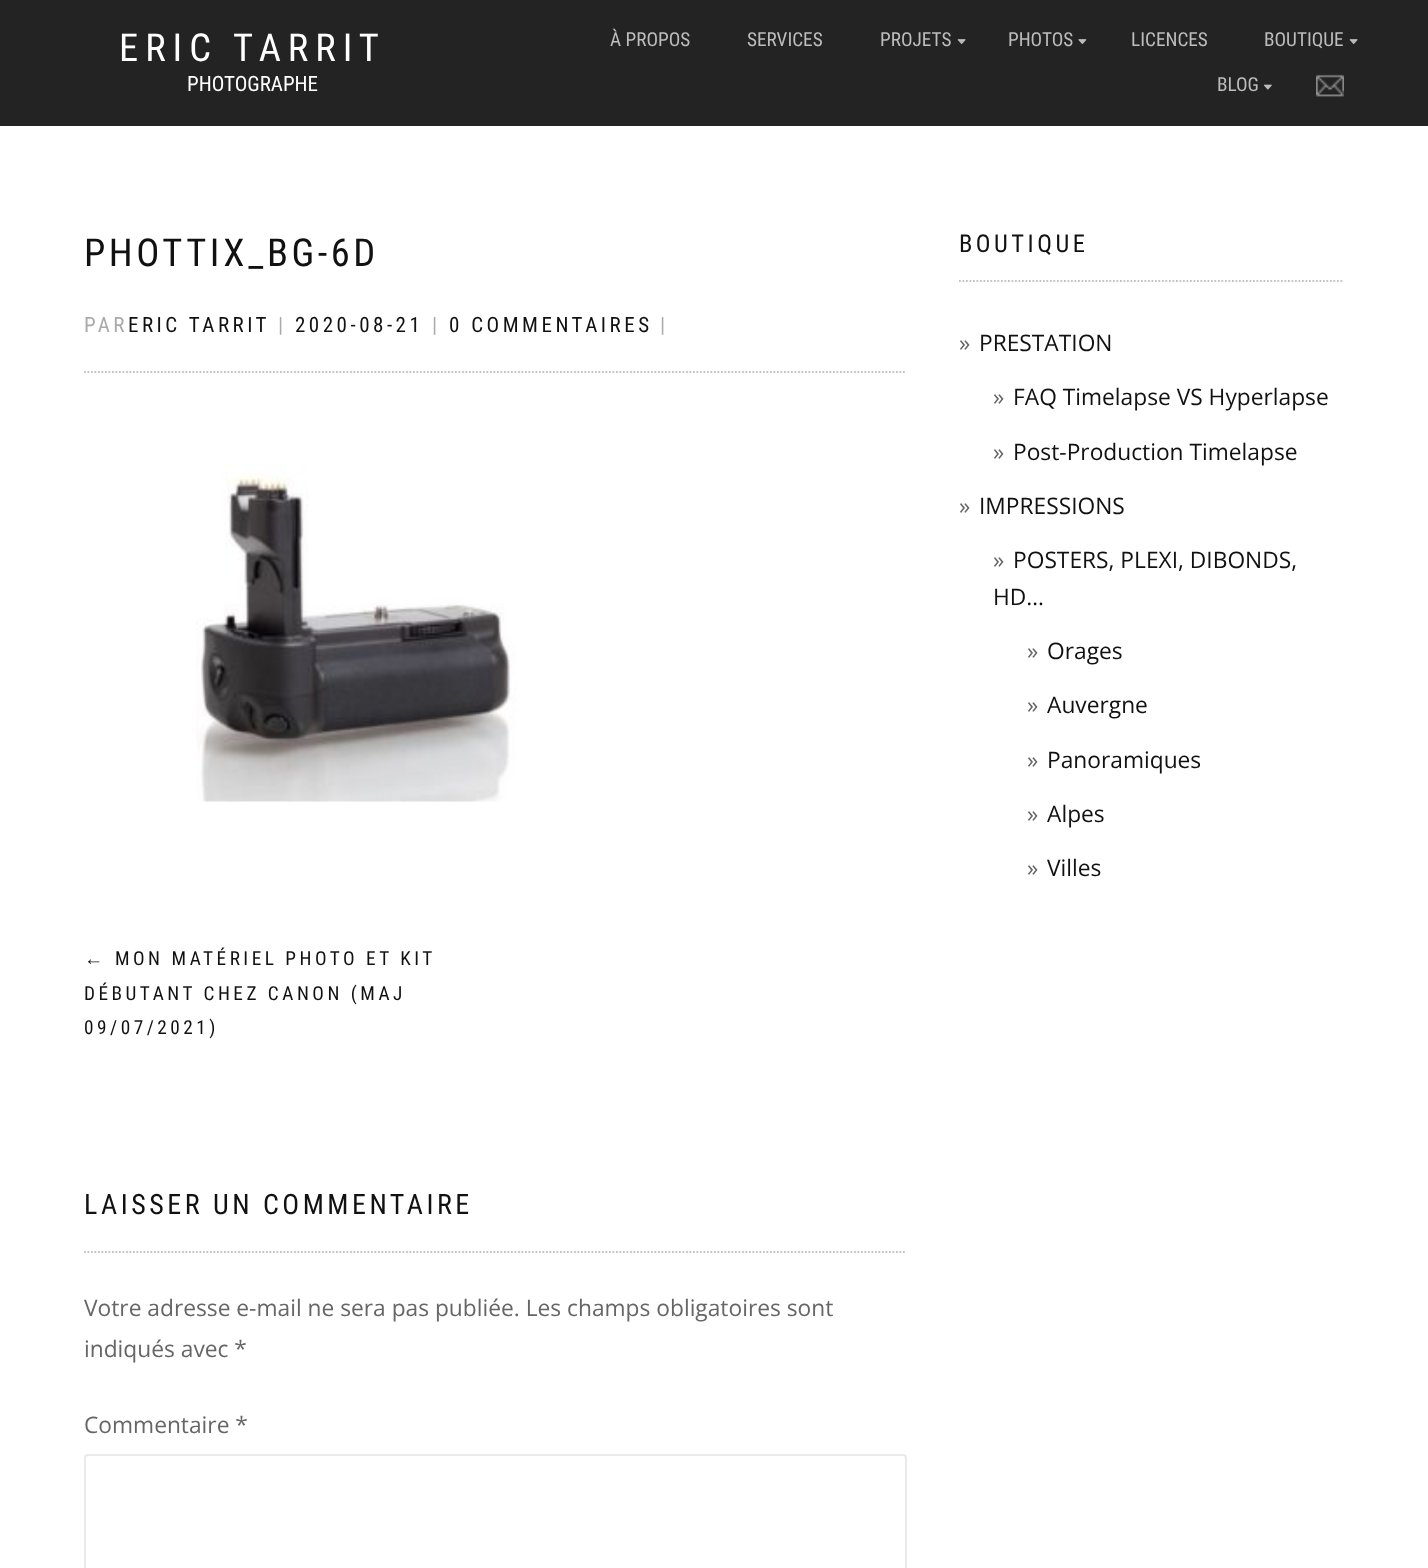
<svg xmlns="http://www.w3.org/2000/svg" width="1428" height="1568">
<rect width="100%" height="100%" fill="#fff"/>
<rect width="1428" height="126" fill="#232323"/>
<text x="119" y="61" style="font-family:Roboto Condensed;font-size:38.5px;letter-spacing:7px;fill:#fff">ERIC TARRIT</text>
<text x="187" y="91" style="font-family:Roboto Condensed;font-size:21px;fill:#fff">PHOTOGRAPHE</text>
<text x="610" y="46" style="font-family:Roboto Condensed;font-size:19.25px;fill:#bdbdbd">À PROPOS</text>
<text x="747" y="46" style="font-family:Roboto Condensed;font-size:19.25px;fill:#bdbdbd">SERVICES</text>
<text x="880" y="46" style="font-family:Roboto Condensed;font-size:19.25px;fill:#bdbdbd">PROJETS</text>
<image x="957" y="39" width="9" height="5" href="media/1.png"/>
<text x="1008" y="46" style="font-family:Roboto Condensed;font-size:19.25px;fill:#bdbdbd">PHOTOS</text>
<image x="1078" y="39" width="9" height="5" href="media/2.png"/>
<text x="1131" y="46" style="font-family:Roboto Condensed;font-size:19.25px;fill:#bdbdbd">LICENCES</text>
<text x="1264" y="46" style="font-family:Roboto Condensed;font-size:19.25px;fill:#bdbdbd">BOUTIQUE</text>
<image x="1349" y="39" width="9" height="5" href="media/1.png"/>
<text x="1217" y="91" style="font-family:Roboto Condensed;font-size:19.25px;fill:#bdbdbd">BLOG</text>
<image x="1264" y="84" width="8" height="6" href="media/3.png"/>
<image x="1316" y="74" width="28" height="23" href="media/4.png"/>
<text x="84" y="266" style="font-family:Roboto Condensed;font-size:38.5px;letter-spacing:3.5px;fill:#111">PHOTTIX_BG-6D</text>
<text x="84" y="332" style="font-family:Roboto Condensed;font-size:21px;letter-spacing:3.5px;fill:#aaa">PAR</text>
<text x="128" y="332" style="font-family:Roboto Condensed;font-size:21px;letter-spacing:3.5px;fill:#111">ERIC TARRIT</text>
<text x="278" y="332" style="font-family:Roboto Condensed;font-size:21px;letter-spacing:3.5px;fill:#aaa">|</text>
<text x="295" y="332" style="font-family:Roboto Condensed;font-size:21px;letter-spacing:3.5px;fill:#111">2020-08-21</text>
<text x="432" y="332" style="font-family:Roboto Condensed;font-size:21px;letter-spacing:3.5px;fill:#aaa">|</text>
<text x="449" y="332" style="font-family:Roboto Condensed;font-size:21px;letter-spacing:3.5px;fill:#111">0 COMMENTAIRES</text>
<text x="660" y="332" style="font-family:Roboto Condensed;font-size:21px;letter-spacing:3.5px;fill:#aaa">|</text>
<path d="M84 372h822.5" fill="none" stroke="#c2c2c2" stroke-width="1.8" stroke-dasharray="1.75 1.75"/>
<image x="196" y="464" width="320" height="338" href="media/5.png"/>
<text x="84" y="965" style="font-family:Liberation Sans;font-size:19.25px;letter-spacing:3.5px;fill:#111">←</text>
<text x="115" y="965" style="font-family:Roboto Condensed;font-size:19.25px;letter-spacing:3.5px;fill:#111">MON MATÉRIEL PHOTO ET KIT</text>
<text x="84" y="1000" style="font-family:Roboto Condensed;font-size:19.25px;letter-spacing:3.5px;fill:#111">DÉBUTANT CHEZ CANON (MAJ</text>
<text x="84" y="1034" style="font-family:Roboto Condensed;font-size:19.25px;letter-spacing:3.5px;fill:#111">09/07/2021)</text>
<path d="M84 1252h822.5" fill="none" stroke="#c2c2c2" stroke-width="1.8" stroke-dasharray="1.75 1.75"/>
<text x="84" y="1214" style="font-family:Roboto Condensed;font-size:28px;letter-spacing:3.5px;fill:#111">LAISSER UN COMMENTAIRE</text>
<text x="84" y="1316" style="font-family:Open Sans;font-size:22.75px;fill:#666">Votre adresse e-mail ne sera pas publiée. Les champs obligatoires sont</text>
<text x="84" y="1357" style="font-family:Open Sans;font-size:22.75px;fill:#666">indiqués avec *</text>
<text x="84" y="1433" style="font-family:Open Sans;font-size:22.75px;fill:#666">Commentaire *</text>
<rect x="85" y="1455" width="821" height="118" rx="3" fill="none" stroke="#eaeaea" stroke-width="2"/>
<path d="M959 281h385" fill="none" stroke="#c2c2c2" stroke-width="1.8" stroke-dasharray="1.75 1.75"/>
<text x="959" y="252" style="font-family:Roboto Condensed;font-size:24.5px;letter-spacing:3.5px;fill:#111">BOUTIQUE</text>
<text x="959" y="351" style="font-family:Open Sans;font-size:22.75px;fill:#666">»</text>
<text x="979" y="351" style="font-family:Open Sans;font-size:22.75px;fill:#111">PRESTATION</text>
<text x="993" y="405" style="font-family:Open Sans;font-size:22.75px;fill:#666">»</text>
<text x="1013" y="405" style="font-family:Open Sans;font-size:22.75px;fill:#111">FAQ Timelapse VS Hyperlapse</text>
<text x="993" y="460" style="font-family:Open Sans;font-size:22.75px;fill:#666">»</text>
<text x="1013" y="460" style="font-family:Open Sans;font-size:22.75px;fill:#111">Post-Production Timelapse</text>
<text x="959" y="514" style="font-family:Open Sans;font-size:22.75px;fill:#666">»</text>
<text x="979" y="514" style="font-family:Open Sans;font-size:22.75px;fill:#111">IMPRESSIONS</text>
<text x="993" y="568" style="font-family:Open Sans;font-size:22.75px;fill:#666">»</text>
<text x="1013" y="568" style="font-family:Open Sans;font-size:22.75px;fill:#111">POSTERS, PLEXI, DIBONDS,</text>
<text x="993" y="605" style="font-family:Open Sans;font-size:22.75px;fill:#111">HD…</text>
<text x="1027" y="659" style="font-family:Open Sans;font-size:22.75px;fill:#666">»</text>
<text x="1047" y="659" style="font-family:Open Sans;font-size:22.75px;fill:#111">Orages</text>
<text x="1027" y="713" style="font-family:Open Sans;font-size:22.75px;fill:#666">»</text>
<text x="1047" y="713" style="font-family:Open Sans;font-size:22.75px;fill:#111">Auvergne</text>
<text x="1027" y="768" style="font-family:Open Sans;font-size:22.75px;fill:#666">»</text>
<text x="1047" y="768" style="font-family:Open Sans;font-size:22.75px;fill:#111">Panoramiques</text>
<text x="1027" y="822" style="font-family:Open Sans;font-size:22.75px;fill:#666">»</text>
<text x="1047" y="822" style="font-family:Open Sans;font-size:22.75px;fill:#111">Alpes</text>
<text x="1027" y="876" style="font-family:Open Sans;font-size:22.75px;fill:#666">»</text>
<text x="1047" y="876" style="font-family:Open Sans;font-size:22.75px;fill:#111">Villes</text>
</svg>
